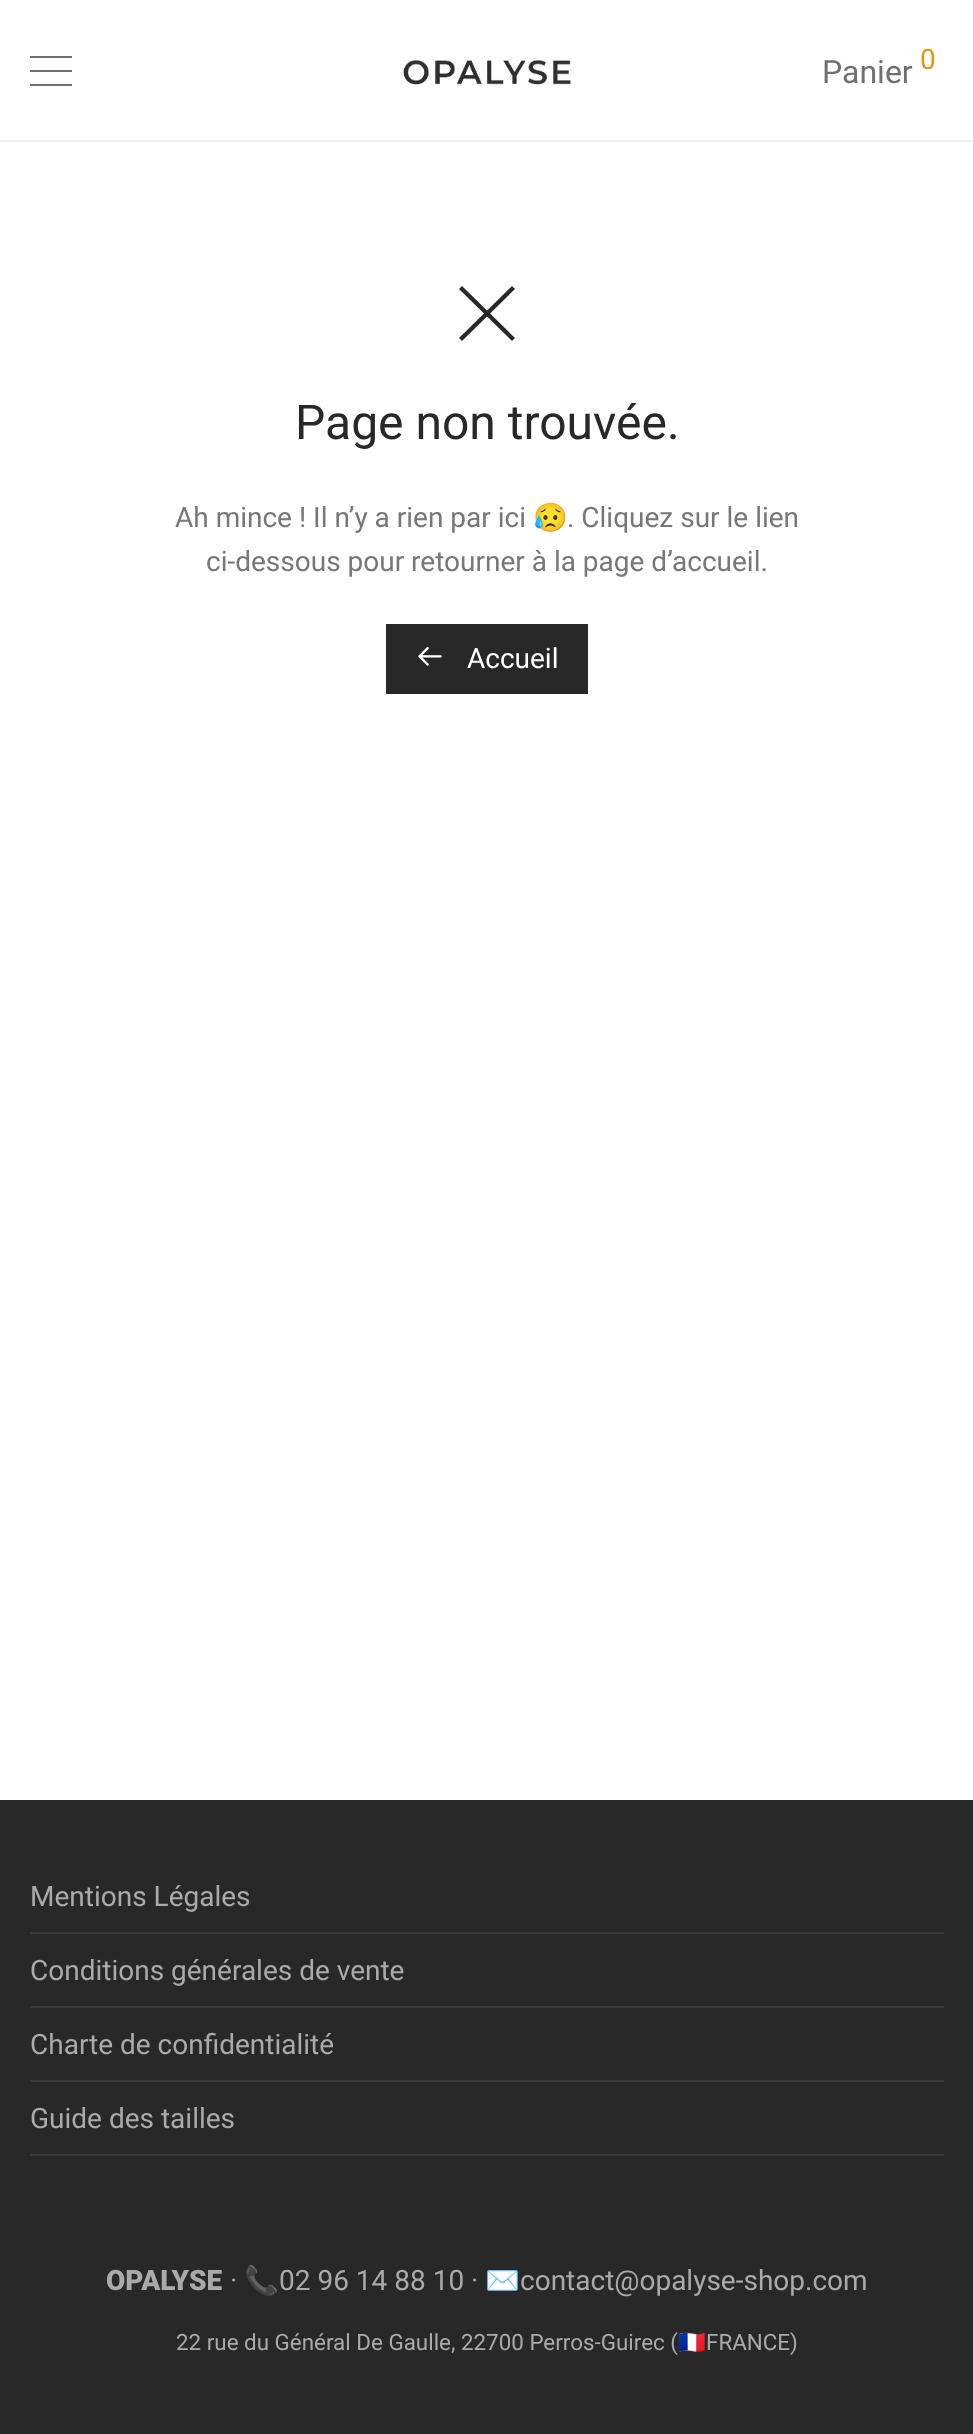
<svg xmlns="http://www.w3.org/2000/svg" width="973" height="2434">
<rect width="100%" height="100%" fill="#fff"/>
<rect y="140" width="973" height="2" fill="#eee"/>
<image x="403" y="59" width="168" height="26" href="media/1.png"/>
<rect x="30" y="56" width="42" height="2" fill="#707070"/>
<rect x="30" y="70" width="42" height="2" fill="#707070"/>
<rect x="30" y="84" width="42" height="2" fill="#707070"/>
<text x="822" y="83" style="font-family:Roboto;font-size:32px;fill:#707070">Panier</text>
<text x="920" y="69" style="font-family:Roboto;font-size:28px;fill:#dc9814">0</text>
<path d="M462 286l53 52l-3 3l-53-52z" fill="#282828"/>
<path d="M459 338l53-52l3 3l-53 52z" fill="#282828"/>
<text x="295" y="439" style="font-family:Roboto;font-size:48px;fill:#282828">Page non trouvée.</text>
<text x="175" y="527" style="font-family:Roboto;font-size:28px;fill:#777">Ah mince ! Il n’y a rien par ici</text>
<text x="533" y="527" style="font-family:Noto Color Emoji;font-size:28px;fill:#777">😥</text>
<text x="567" y="527" style="font-family:Roboto;font-size:28px;fill:#777">. Cliquez sur le lien</text>
<text x="206" y="571" style="font-family:Roboto;font-size:28px;fill:#777">ci-dessous pour retourner à la page d’accueil.</text>
<rect x="386" y="624" width="202" height="70" fill="#282828"/>
<image x="418" y="647" width="24" height="19" href="media/2.png"/>
<text x="467" y="668" style="font-family:Roboto;font-size:28px;fill:#fff">Accueil</text>
<rect y="1800" width="973" height="634" fill="#282828"/>
<rect x="30" y="1932" width="914" height="2" fill="#3a3a3a"/>
<text x="30" y="1906" style="font-family:Roboto;font-size:28px;fill:#aaa">Mentions Légales</text>
<rect x="30" y="2006" width="914" height="2" fill="#3a3a3a"/>
<text x="30" y="1980" style="font-family:Roboto;font-size:28px;fill:#aaa">Conditions générales de vente</text>
<rect x="30" y="2080" width="914" height="2" fill="#3a3a3a"/>
<text x="30" y="2054" style="font-family:Roboto;font-size:28px;fill:#aaa">Charte de confidentialité</text>
<rect x="30" y="2154" width="914" height="2" fill="#3a3a3a"/>
<text x="30" y="2128" style="font-family:Roboto;font-size:28px;fill:#aaa">Guide des tailles</text>
<text x="106" y="2290" style="font-family:Roboto;font-size:28px;font-weight:900;fill:#aaa">OPALYSE</text>
<text x="230" y="2290" style="font-family:Roboto;font-size:28px;fill:#aaa">·</text>
<text x="244" y="2290" style="font-family:Noto Color Emoji;font-size:28px;fill:#aaa">📞</text>
<text x="279" y="2290" style="font-family:Roboto;font-size:28px;fill:#aaa">02 96 14 88 10 ·</text>
<text x="485" y="2290" style="font-family:Noto Color Emoji;font-size:28px;fill:#aaa">✉️</text>
<text x="520" y="2290" style="font-family:Roboto;font-size:28px;fill:#aaa">contact@opalyse-shop.com</text>
<text x="176" y="2350" style="font-family:Roboto;font-size:22.4px;fill:#aaa">22 rue du Général De Gaulle, 22700 Perros-Guirec (</text>
<text x="678" y="2350" style="font-family:Noto Color Emoji;font-size:22.4px;fill:#aaa">🇫🇷</text>
<text x="706" y="2350" style="font-family:Roboto;font-size:22.4px;fill:#aaa">FRANCE)</text>
</svg>
